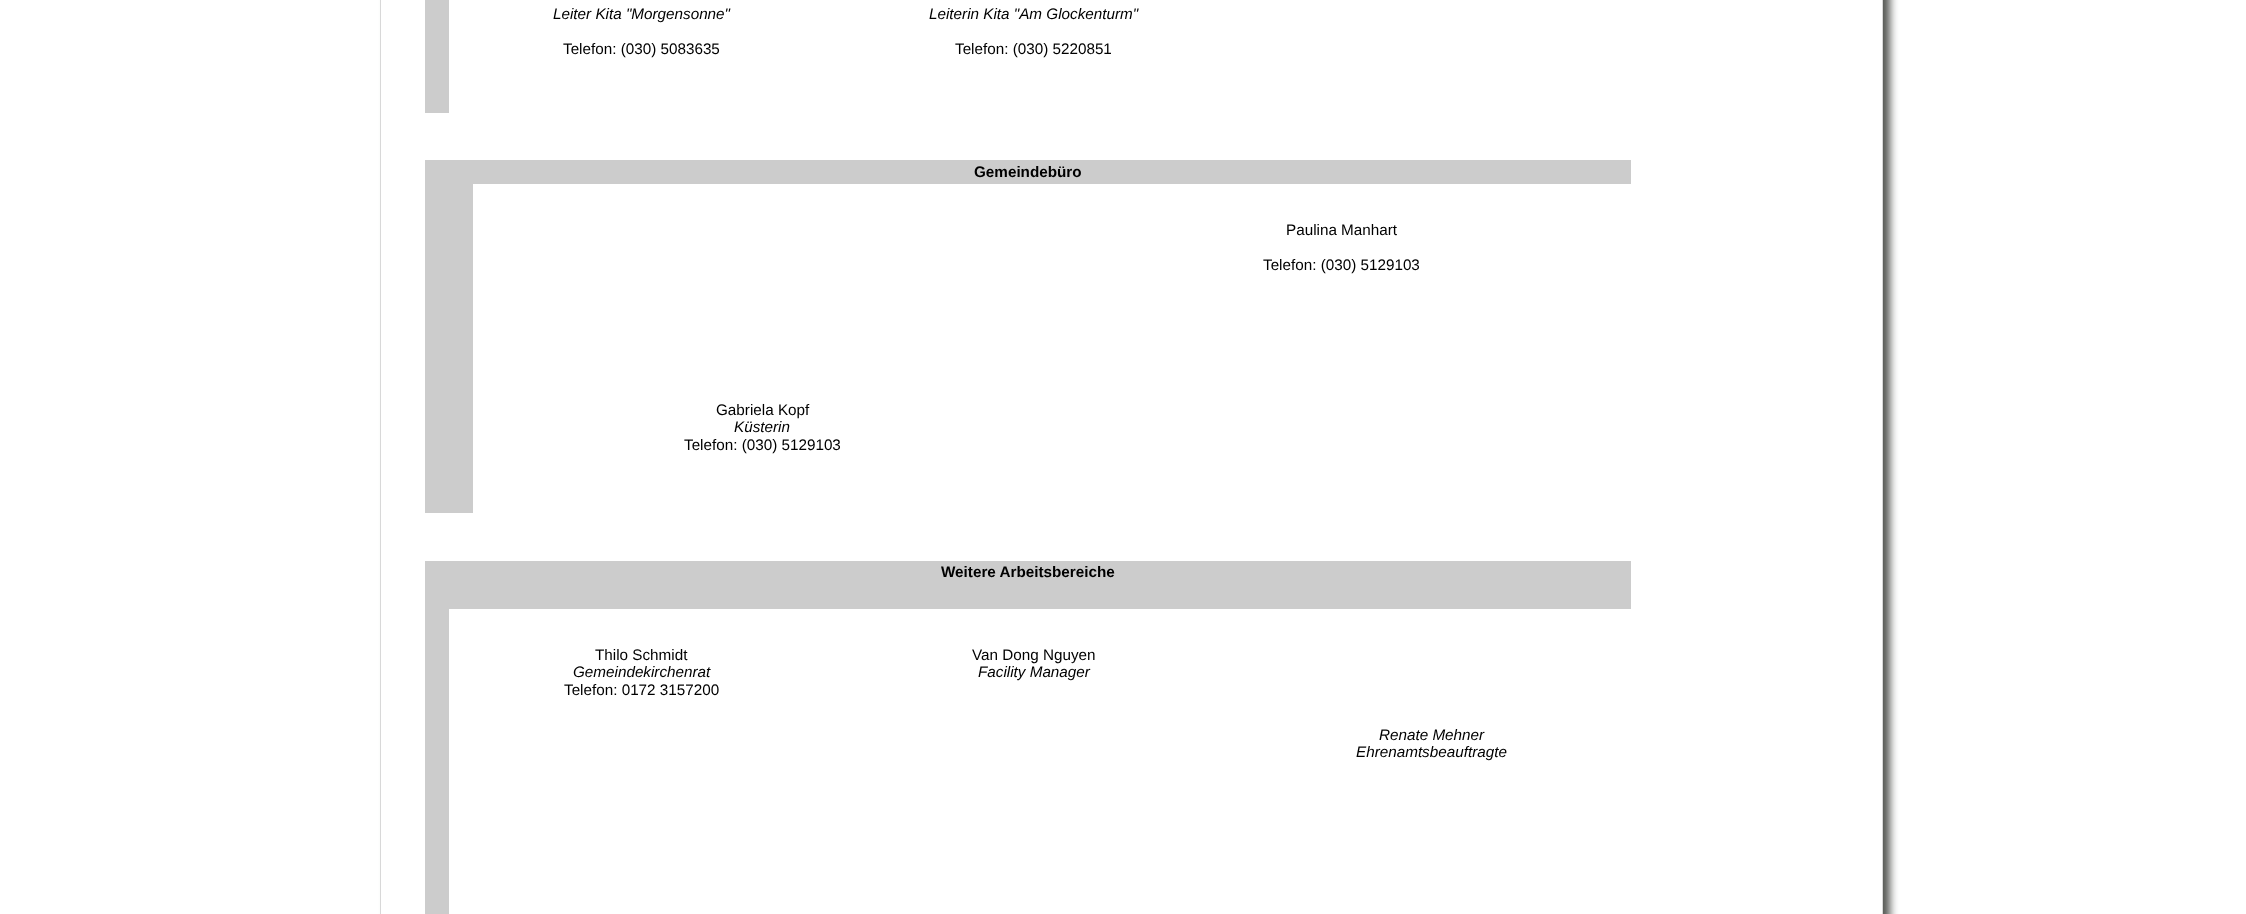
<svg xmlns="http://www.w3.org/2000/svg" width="2246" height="914">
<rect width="100%" height="100%" fill="#fff"/>
<rect x="388" y="-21" width="1502" height="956" rx="9" fill="#555753" filter="blur(4px)"/>
<rect x="380.5" y="-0.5" width="1502" height="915" fill="#fff" stroke="#d8d8d8"/>
<rect x="425" width="24" height="113" fill="#ccc"/>
<text x="553" y="19" style="font-family:Liberation Sans;font-size:15.25px;font-style:italic;fill:#000">Leiter Kita "Morgensonne"</text>
<text x="563" y="54" style="font-family:Liberation Sans;font-size:15.25px;fill:#000">Telefon: (030) 5083635</text>
<text x="929" y="19" style="font-family:Liberation Sans;font-size:15.25px;font-style:italic;fill:#000">Leiterin Kita "Am Glockenturm"</text>
<text x="955" y="54" style="font-family:Liberation Sans;font-size:15.25px;fill:#000">Telefon: (030) 5220851</text>
<rect x="425" y="160" width="1206" height="24" fill="#ccc"/>
<text x="974" y="177" style="font-family:Liberation Sans;font-size:15.25px;font-weight:bold;fill:#000">Gemeindebüro</text>
<rect x="425" y="184" width="48" height="329" fill="#ccc"/>
<text x="1286" y="235" style="font-family:Liberation Sans;font-size:15.25px;fill:#000">Paulina Manhart</text>
<text x="1263" y="270" style="font-family:Liberation Sans;font-size:15.25px;fill:#000">Telefon: (030) 5129103</text>
<text x="716" y="415" style="font-family:Liberation Sans;font-size:15.25px;fill:#000">Gabriela Kopf</text>
<text x="734" y="432" style="font-family:Liberation Sans;font-size:15.25px;font-style:italic;fill:#000">Küsterin</text>
<text x="684" y="450" style="font-family:Liberation Sans;font-size:15.25px;fill:#000">Telefon: (030) 5129103</text>
<rect x="425" y="561" width="1206" height="48" fill="#ccc"/>
<text x="941" y="577" style="font-family:Liberation Sans;font-size:15.25px;font-weight:bold;fill:#000">Weitere Arbeitsbereiche</text>
<rect x="425" y="609" width="24" height="305" fill="#ccc"/>
<text x="595" y="660" style="font-family:Liberation Sans;font-size:15.25px;fill:#000">Thilo Schmidt</text>
<text x="573" y="677" style="font-family:Liberation Sans;font-size:15.25px;font-style:italic;fill:#000">Gemeindekirchenrat</text>
<text x="564" y="695" style="font-family:Liberation Sans;font-size:15.25px;fill:#000">Telefon: 0172 3157200</text>
<text x="972" y="660" style="font-family:Liberation Sans;font-size:15.25px;fill:#000">Van Dong Nguyen</text>
<text x="978" y="677" style="font-family:Liberation Sans;font-size:15.25px;font-style:italic;fill:#000">Facility Manager</text>
<text x="1379" y="740" style="font-family:Liberation Sans;font-size:15.25px;font-style:italic;fill:#000">Renate Mehner</text>
<text x="1356" y="757" style="font-family:Liberation Sans;font-size:15.25px;font-style:italic;fill:#000">Ehrenamtsbeauftragte</text>
</svg>
